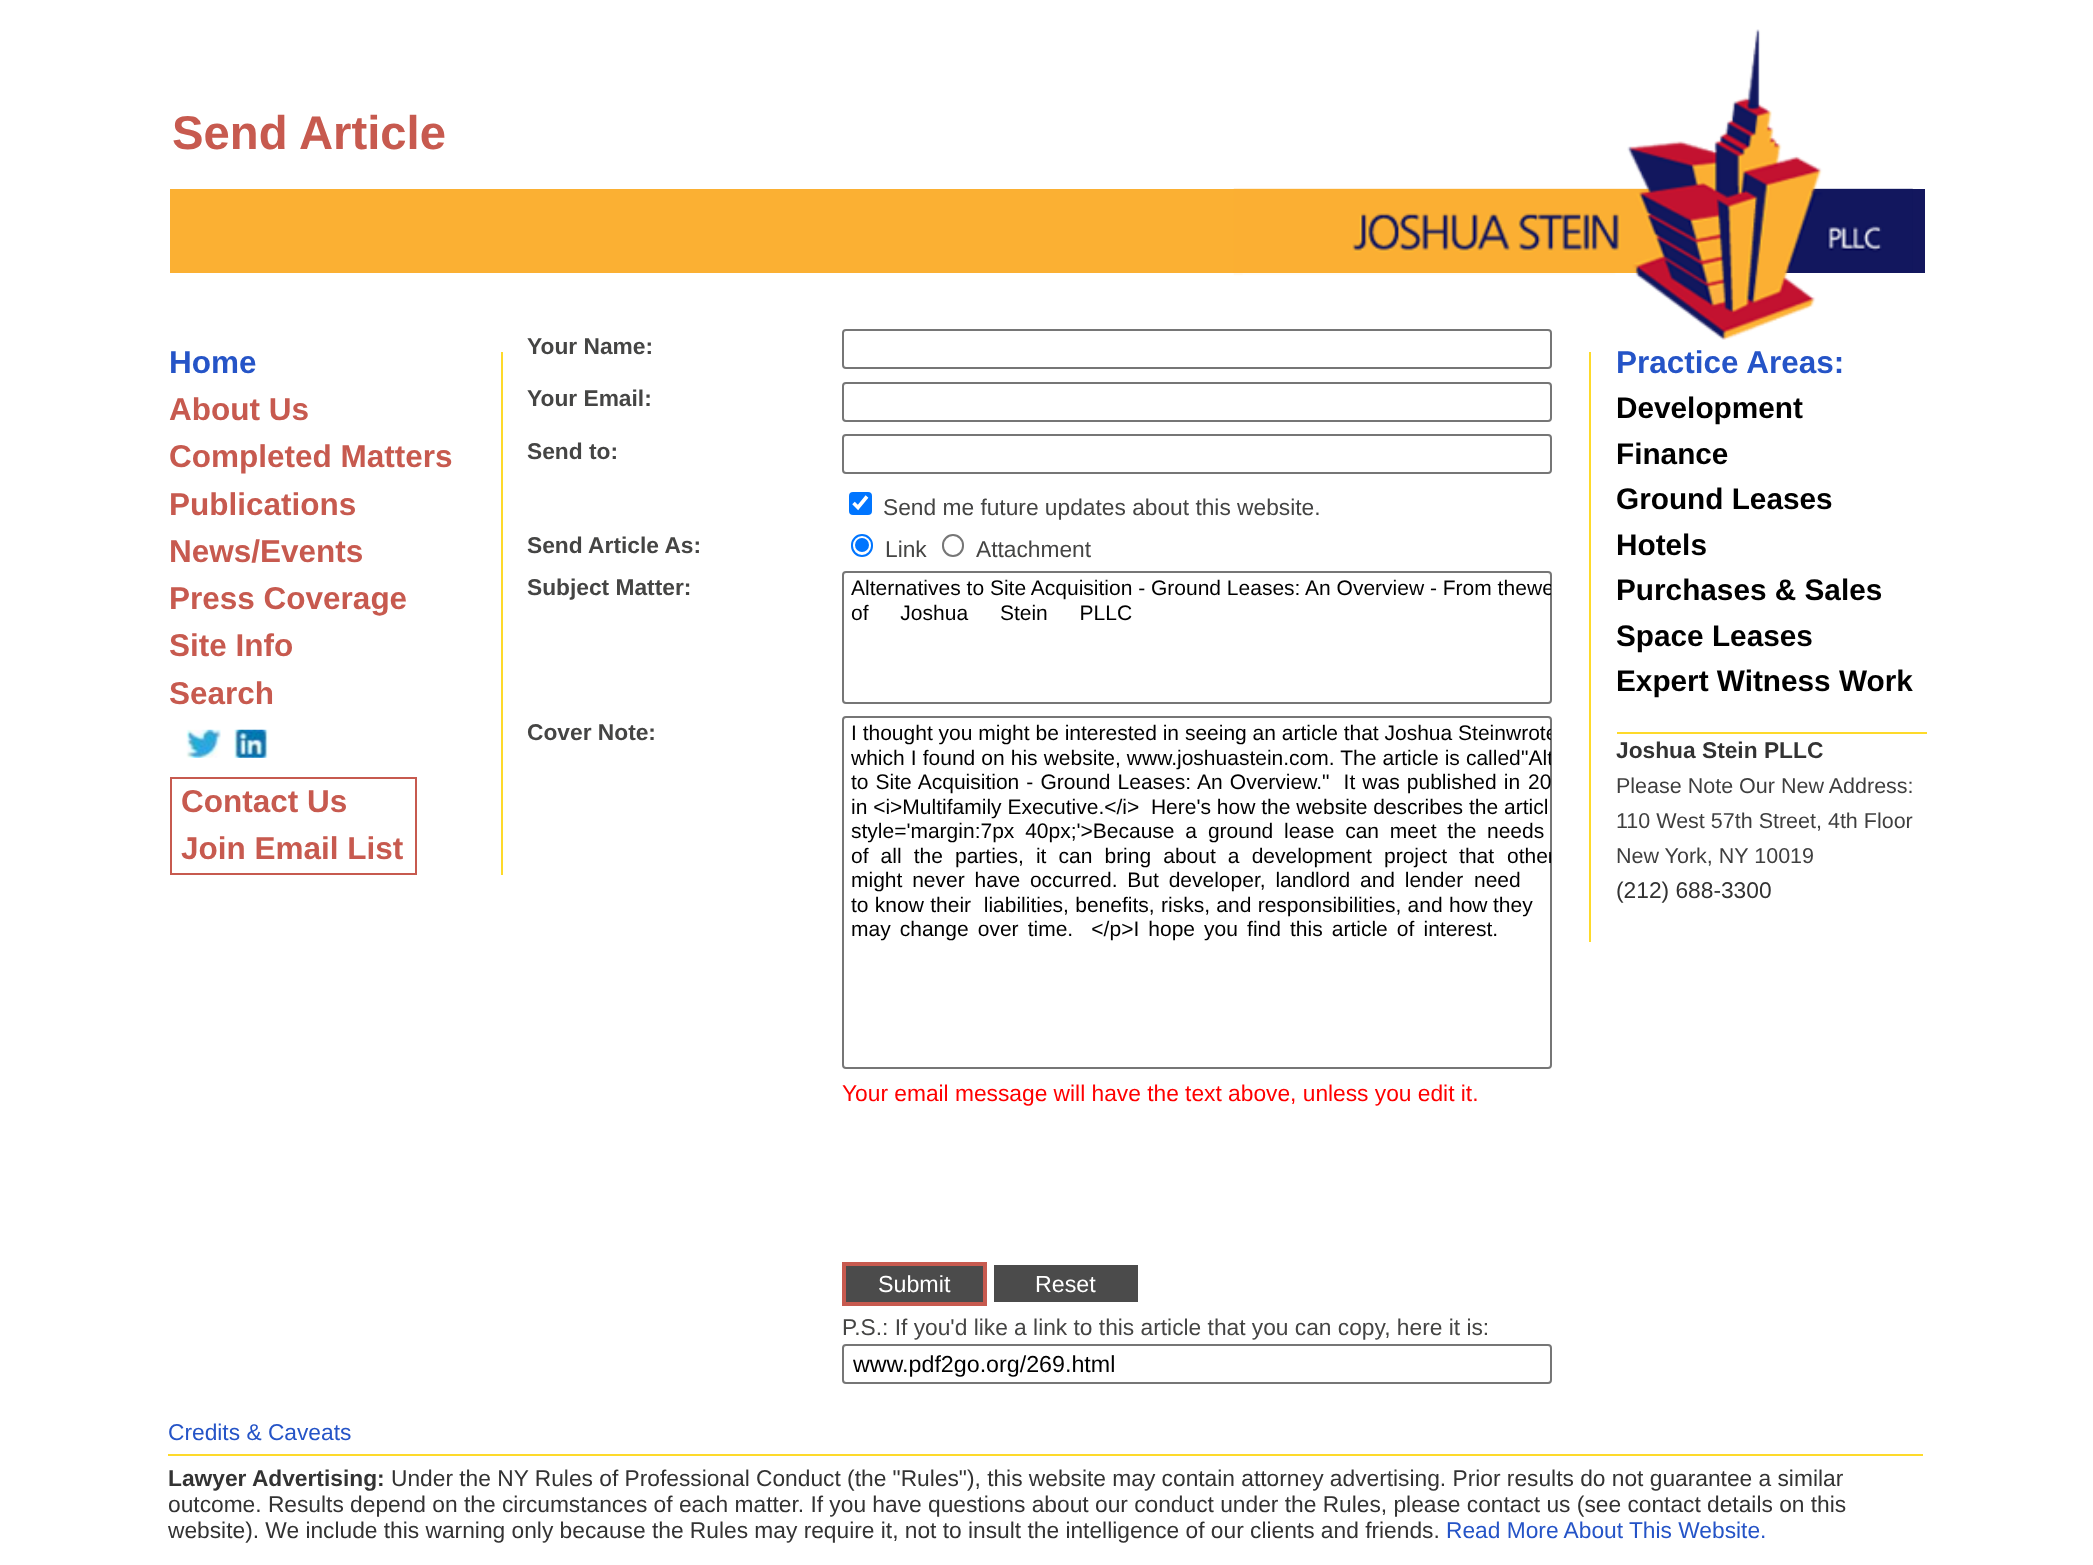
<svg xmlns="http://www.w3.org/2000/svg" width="2093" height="1565">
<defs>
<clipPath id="clip1"><rect x="844" y="572" width="707" height="130"/></clipPath>
<clipPath id="clip2"><rect x="844" y="718" width="707" height="350"/></clipPath>
</defs>
<rect width="100%" height="100%" fill="#fff"/>
<rect x="170" y="189" width="1481" height="84" fill="#fbb033"/>
<rect x="1784" y="189" width="141" height="84" fill="#13175e"/>
<rect x="843" y="330" width="708" height="38" rx="3" fill="none" stroke="#767676" stroke-width="2"/>
<image x="1233" y="29" width="680" height="311" href="media/1.png"/>
<text x="172" y="149" style="font-family:Liberation Sans;font-size:47.25px;font-weight:bold;fill:#c75a4f">Send Article</text>
<text x="527" y="354" style="font-family:Liberation Sans;font-size:22.75px;font-weight:bold;fill:#454544">Your Name:</text>
<text x="527" y="406" style="font-family:Liberation Sans;font-size:22.75px;font-weight:bold;fill:#454544">Your Email:</text>
<rect x="843" y="383" width="708" height="38" rx="3" fill="none" stroke="#767676" stroke-width="2"/>
<text x="527" y="459" style="font-family:Liberation Sans;font-size:22.75px;font-weight:bold;fill:#454544">Send to:</text>
<rect x="843" y="435" width="708" height="38" rx="3" fill="none" stroke="#767676" stroke-width="2"/>
<rect x="849" y="492" width="23" height="23" rx="4" fill="#0075ff"/>
<path d="M853.5 503l4.5 4.5l9-11" fill="none" stroke="#fff" stroke-width="3.6"/>
<text x="883" y="515" style="font-family:Liberation Sans;font-size:22.75px;fill:#454544">Send me future updates about this website.</text>
<text x="527" y="553" style="font-family:Liberation Sans;font-size:22.75px;font-weight:bold;fill:#454544">Send Article As:</text>
<rect x="852" y="535" width="20" height="21" rx="10" fill="none" stroke="#0075ff" stroke-width="2"/>
<circle cx="862" cy="545" r="7" fill="#0075ff"/>
<text x="885" y="557" style="font-family:Liberation Sans;font-size:22.75px;fill:#454544">Link</text>
<rect x="943" y="535" width="20" height="21" rx="10" fill="none" stroke="#767676" stroke-width="2"/>
<text x="976" y="557" style="font-family:Liberation Sans;font-size:22.75px;fill:#454544">Attachment</text>
<text x="527" y="595" style="font-family:Liberation Sans;font-size:22.75px;font-weight:bold;fill:#454544">Subject Matter:</text>
<rect x="843" y="572" width="708" height="131" rx="3" fill="none" stroke="#767676" stroke-width="2"/>
<text x="851" y="595" style="font-family:Liberation Sans;font-size:21px;fill:#000">Alternatives to Site Acquisition - Ground Leases: An Overview - From the</text>
<g clip-path="url(#clip1)">
<text x="1527" y="595" style="font-family:Liberation Sans;font-size:21px;fill:#000">we</text>
</g>
<text x="851" y="620" word-spacing="26" style="font-family:Liberation Sans;font-size:21px;fill:#000">of Joshua Stein PLLC</text>
<text x="527" y="740" style="font-family:Liberation Sans;font-size:22.75px;font-weight:bold;fill:#454544">Cover Note:</text>
<rect x="843" y="717" width="708" height="351" rx="3" fill="none" stroke="#767676" stroke-width="2"/>
<text x="851" y="740" style="font-family:Liberation Sans;font-size:21px;fill:#000">I thought you might be interested in seeing an article that Joshua Stein</text>
<g clip-path="url(#clip2)">
<text x="1506" y="740" style="font-family:Liberation Sans;font-size:21px;fill:#000">wrote</text>
</g>
<text x="851" y="765" word-spacing="0.25" style="font-family:Liberation Sans;font-size:21px;fill:#000">which I found on his website, www.joshuastein.com. The article is called</text>
<g clip-path="url(#clip2)">
<text x="1521" y="765" style="font-family:Liberation Sans;font-size:21px;fill:#000">"Alt</text>
</g>
<text x="851" y="789" word-spacing="1.25" style="font-family:Liberation Sans;font-size:21px;fill:#000" xml:space="preserve">to Site Acquisition - Ground Leases: An Overview."  It was published in</text>
<text x="1528" y="789" style="font-family:Liberation Sans;font-size:21px;fill:#000">20</text>
<text x="851" y="814" style="font-family:Liberation Sans;font-size:21px;fill:#000" xml:space="preserve">in &lt;i&gt;Multifamily Executive.&lt;/i&gt;  Here's how the website describes the articl</text>
<text x="851" y="838" word-spacing="5" style="font-family:Liberation Sans;font-size:21px;fill:#000">style='margin:7px 40px;'&gt;Because a ground lease can meet the</text>
<text x="1487" y="838" style="font-family:Liberation Sans;font-size:21px;fill:#000">needs</text>
<text x="851" y="863" word-spacing="6.25" style="font-family:Liberation Sans;font-size:21px;fill:#000">of all the parties, it can bring about a development project that</text>
<g clip-path="url(#clip2)">
<text x="1507" y="863" style="font-family:Liberation Sans;font-size:21px;fill:#000">other</text>
</g>
<text x="851" y="887" word-spacing="4" style="font-family:Liberation Sans;font-size:21px;fill:#000">might never have occurred. But developer, landlord and lender</text>
<text x="1474" y="887" style="font-family:Liberation Sans;font-size:21px;fill:#000">need</text>
<text x="851" y="912" word-spacing="0.5" style="font-family:Liberation Sans;font-size:21px;fill:#000" xml:space="preserve">to know their  liabilities, benefits, risks, and responsibilities, and how</text>
<text x="1493" y="912" style="font-family:Liberation Sans;font-size:21px;fill:#000">they</text>
<text x="851" y="936" word-spacing="3.25" style="font-family:Liberation Sans;font-size:21px;fill:#000" xml:space="preserve">may change over time.  &lt;/p&gt;I hope you find this article of interest.</text>
<text x="842" y="1101" style="font-family:Liberation Sans;font-size:22.75px;fill:#f00">Your email message will have the text above, unless you edit it.</text>
<rect x="844" y="1264" width="141" height="40" fill="#4b4b4b" stroke="#c75a4f" stroke-width="4"/>
<text x="878" y="1292" style="font-family:Liberation Sans;font-size:23.25px;fill:#fff">Submit</text>
<rect x="994" y="1265" width="144" height="37" fill="#4b4b4b"/>
<text x="1035" y="1292" style="font-family:Liberation Sans;font-size:23.25px;fill:#fff">Reset</text>
<text x="842" y="1335" style="font-family:Liberation Sans;font-size:22.75px;fill:#454544">P.S.: If you'd like a link to this article that you can copy, here it is:</text>
<rect x="843" y="1345" width="708" height="38" rx="3" fill="none" stroke="#767676" stroke-width="2"/>
<text x="853" y="1372" style="font-family:Liberation Sans;font-size:23.25px;fill:#000">www.pdf2go.org/269.html</text>
<rect x="1589" y="352" width="2" height="590" fill="#feda2a"/>
<text x="1616" y="373" style="font-family:Liberation Sans;font-size:31.5px;font-weight:bold;fill:#2554c7">Practice Areas:</text>
<text x="1616" y="418" style="font-family:Liberation Sans;font-size:29.75px;font-weight:bold;fill:#000">Development</text>
<text x="1616" y="464" style="font-family:Liberation Sans;font-size:29.75px;font-weight:bold;fill:#000">Finance</text>
<text x="1616" y="509" style="font-family:Liberation Sans;font-size:29.75px;font-weight:bold;fill:#000">Ground Leases</text>
<text x="1616" y="555" style="font-family:Liberation Sans;font-size:29.75px;font-weight:bold;fill:#000">Hotels</text>
<text x="1616" y="600" style="font-family:Liberation Sans;font-size:29.75px;font-weight:bold;fill:#000">Purchases &amp; Sales</text>
<text x="1616" y="646" style="font-family:Liberation Sans;font-size:29.75px;font-weight:bold;fill:#000">Space Leases</text>
<text x="1616" y="691" style="font-family:Liberation Sans;font-size:29.75px;font-weight:bold;fill:#000">Expert Witness Work</text>
<rect x="1617" y="732" width="310" height="2" fill="#feda2a"/>
<text x="1616" y="758" style="font-family:Liberation Sans;font-size:22.75px;font-weight:bold;fill:#333">Joshua Stein PLLC</text>
<text x="1616" y="793" style="font-family:Liberation Sans;font-size:21.5px;fill:#3f3f3f">Please Note Our New Address:</text>
<text x="1616" y="828" style="font-family:Liberation Sans;font-size:21.5px;fill:#3f3f3f">110 West 57th Street, 4th Floor</text>
<text x="1616" y="863" style="font-family:Liberation Sans;font-size:21.5px;fill:#3f3f3f">New York, NY 10019</text>
<text x="1616" y="898" style="font-family:Liberation Sans;font-size:22.75px;fill:#333">(212) 688-3300</text>
<rect x="501" y="352" width="2" height="523" fill="#feda2a"/>
<text x="169" y="373" style="font-family:Liberation Sans;font-size:31.5px;font-weight:bold;fill:#2554c7">Home</text>
<text x="169" y="420" style="font-family:Liberation Sans;font-size:31.5px;font-weight:bold;fill:#c75a4f">About Us</text>
<text x="169" y="467" style="font-family:Liberation Sans;font-size:31.5px;font-weight:bold;fill:#c75a4f">Completed Matters</text>
<text x="169" y="515" style="font-family:Liberation Sans;font-size:31.5px;font-weight:bold;fill:#c75a4f">Publications</text>
<text x="169" y="562" style="font-family:Liberation Sans;font-size:31.5px;font-weight:bold;fill:#c75a4f">News/Events</text>
<text x="169" y="609" style="font-family:Liberation Sans;font-size:31.5px;font-weight:bold;fill:#c75a4f">Press Coverage</text>
<text x="169" y="656" style="font-family:Liberation Sans;font-size:31.5px;font-weight:bold;fill:#c75a4f">Site Info</text>
<text x="169" y="704" style="font-family:Liberation Sans;font-size:31.5px;font-weight:bold;fill:#c75a4f">Search</text>
<image x="186" y="729" width="35" height="29" href="media/2.png"/>
<image x="234" y="729" width="35" height="29" href="media/3.png"/>
<rect x="171" y="778" width="245" height="96" fill="none" stroke="#c75a4f" stroke-width="2"/>
<text x="181" y="812" style="font-family:Liberation Sans;font-size:31.5px;font-weight:bold;fill:#c75a4f">Contact Us</text>
<text x="181" y="859" style="font-family:Liberation Sans;font-size:31.5px;font-weight:bold;fill:#c75a4f">Join Email List</text>
<rect x="168" y="1454" width="1755" height="2" fill="#feda2a"/>
<text x="168" y="1440" style="font-family:Liberation Sans;font-size:22.75px;fill:#2554c7">Credits &amp; Caveats</text>
<text x="168" y="1486" style="font-family:Liberation Sans;font-size:22.75px;font-weight:bold;fill:#333">Lawyer Advertising:</text>
<text x="391" y="1486" style="font-family:Liberation Sans;font-size:22.75px;fill:#333">Under the NY Rules of Professional Conduct (the "Rules"), this website may contain attorney advertising. Prior results do not guarantee a similar</text>
<text x="168" y="1512" style="font-family:Liberation Sans;font-size:22.75px;fill:#333">outcome. Results depend on the circumstances of each matter. If you have questions about our conduct under the Rules, please contact us (see contact details on this</text>
<text x="168" y="1538" style="font-family:Liberation Sans;font-size:22.75px;fill:#333">website). We include this warning only because the Rules may require it, not to insult the intelligence of our clients and friends.</text>
<text x="1446" y="1538" style="font-family:Liberation Sans;font-size:22.75px;fill:#2554c7">Read More About This Website.</text>
</svg>
